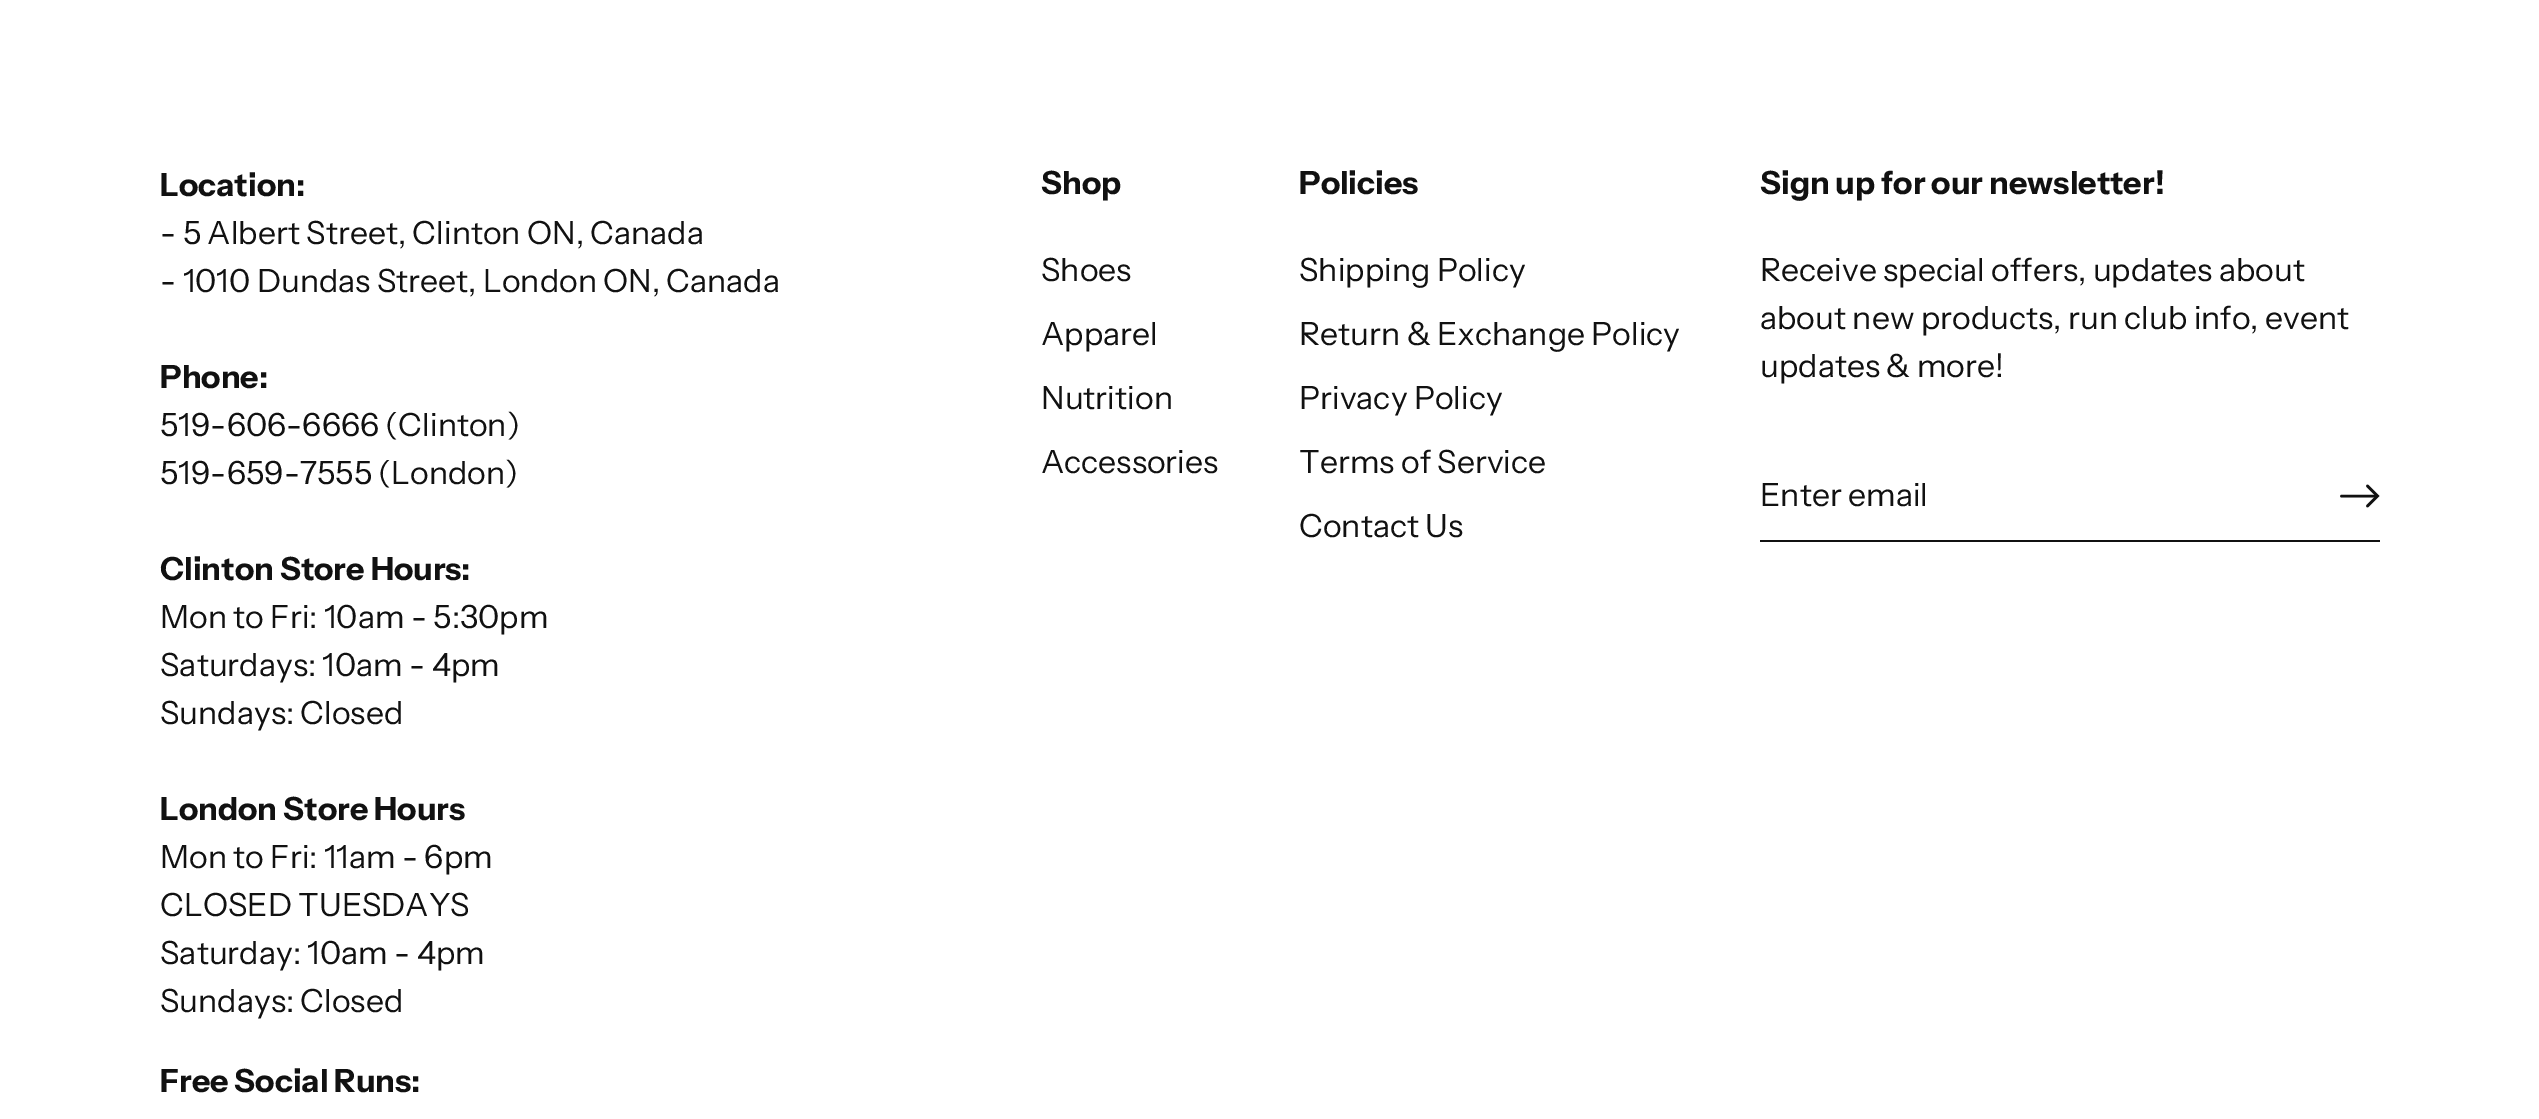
%!PS
<< /PageSize [2539 1119] >> setpagedevice
/m/moveto load def
/l/rlineto load def
/s/stroke load def
/w/setlinewidth load def
/C { dup -16 bitshift 255 div exch dup -8 bitshift 255 and 255 div exch 255 and 255 div setrgbcolor } def
/F { [ exch dup neg 0 0 3 -1 roll 0 0 ] selectfont } def
/T { moveto show } def
/R { rectfill } def
0 1119 translate 1 -1 scale
4 setmiterlimit
16#FFFFFF C
0 0 2539 1119 R
/InstrumentSans-Bold 32 F
16#111111 C
(Location:) 160 196 T
/InstrumentSans-Regular 32 F
(- 5 Albert Street, Clinton ON, Canada) 160 244 T
(- 1010 Dundas Street, London ON, Canada) 160 292 T
/InstrumentSans-Bold 32 F
(Phone:) 160 388 T
/InstrumentSans-Regular 32 F
(519-606-6666 \(Clinton\)) 160 436 T
(519-659-7555 \(London\)) 160 484 T
/InstrumentSans-Bold 32 F
(Clinton Store Hours:) 160 580 T
/InstrumentSans-Regular 32 F
(Mon to Fri: 10am - 5:30pm) 160 628 T
(Saturdays: 10am - 4pm) 160 676 T
(Sundays: Closed) 160 724 T
/InstrumentSans-Bold 32 F
(London Store Hours) 160 820 T
/InstrumentSans-Regular 32 F
(Mon to Fri: 11am - 6pm) 160 868 T
(CLOSED TUESDAYS) 160 916 T
(Saturday: 10am - 4pm) 160 964 T
(Sundays: Closed) 160 1012 T
/InstrumentSans-Bold 32 F
(Free Social Runs:) 160 1092 T
(Shop) 1041 194 T
/InstrumentSans-Regular 32 F
(Shoes) 1041 281 T
(Apparel) 1041 345 T
(Nutrition) 1041 409 T
(Accessories) 1041 473 T
/InstrumentSans-Bold 32 F
(Policies) 1299 194 T
/InstrumentSans-Regular 32 F
(Shipping Policy) 1299 281 T
(Return & Exchange Policy) 1299 345 T
(Privacy Policy) 1299 409 T
(Terms of Service) 1299 473 T
(Contact Us) 1299 537 T
/InstrumentSans-Bold 32 F
(Sign up for our newsletter!) 1760 194 T
/InstrumentSans-Regular 32 F
(Receive special offers, updates about) 1760 281 T
(about new products, run club info, event) 1760 329 T
(updates & more!) 1760 377 T
1760 540 620 2 R
(Enter email) 1760 506 T
2.6 w
1 setlinecap
2367.5 506 m 10 -10 l -10 -10 l s
1 setlinejoin
2376.5 496 m -35 0 l s
showpage
